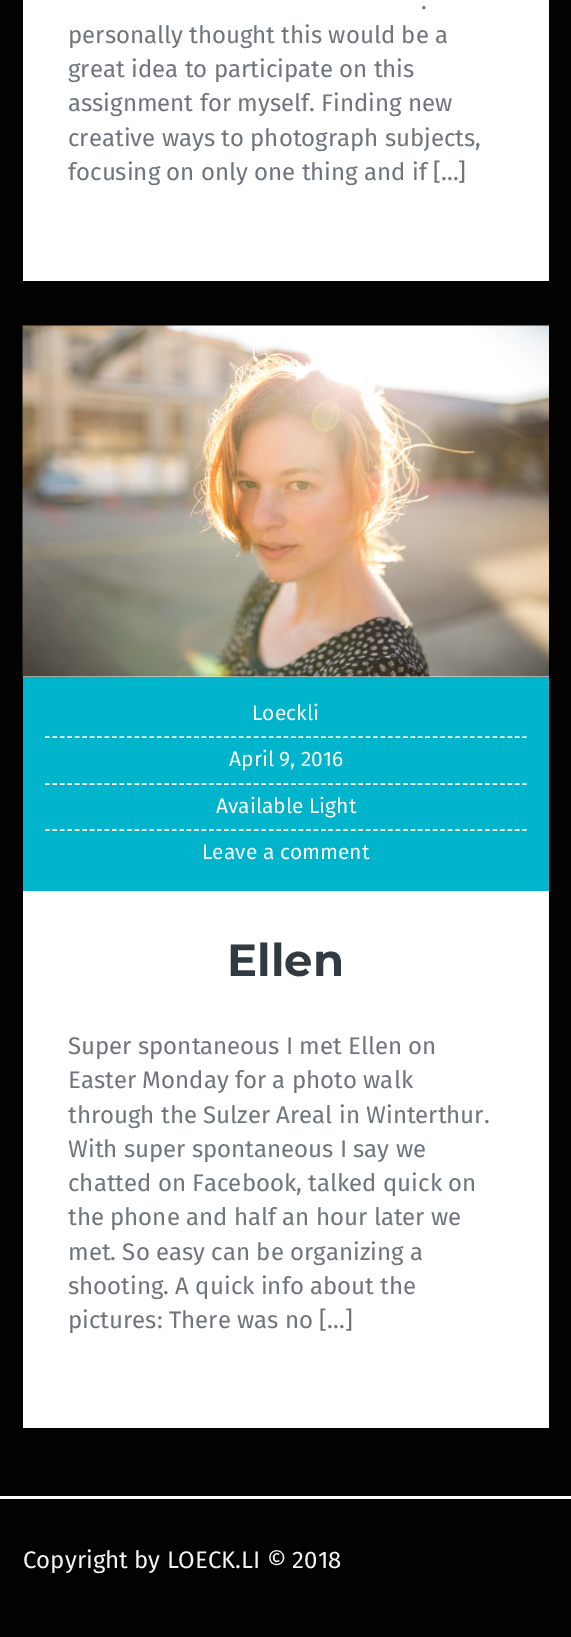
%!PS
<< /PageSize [571 1637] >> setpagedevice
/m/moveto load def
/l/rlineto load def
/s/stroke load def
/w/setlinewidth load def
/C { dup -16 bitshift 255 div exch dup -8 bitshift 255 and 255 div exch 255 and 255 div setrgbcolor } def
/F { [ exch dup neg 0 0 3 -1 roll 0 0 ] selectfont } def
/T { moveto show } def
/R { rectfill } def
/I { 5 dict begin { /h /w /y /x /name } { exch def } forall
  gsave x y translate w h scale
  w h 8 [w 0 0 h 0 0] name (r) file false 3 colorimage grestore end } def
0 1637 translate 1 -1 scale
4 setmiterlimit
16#020202 C
0 0 571 1637 R
16#FFFFFF C
23 0 526 281 R
/FiraSans-Regular 24 F
16#6E757C C
(.) 421 9 T
(personally thought this would be a) 68 43 T
(great idea to participate on this) 68 77 T
(assignment for myself. Finding new) 68 111 T
(creative ways to photograph subjects,) 68 146 T
(focusing on only one thing and if […]) 68 180 T
16#FFFFFF C
23 676 526 752 R
(1.rgb) 22 325 527 352 I
16#00B4CC C
23 677 526 214 R
16#FFFFFF C
1.5 w
[4.5 2.96] 0 setdash
45 737 m 481.5 0 l s
/FiraSans-Regular 21 F
(Loeckli) 252 720 T
45 784 m 481.5 0 l s
(April 9, 2016) 229 766 T
45 830 m 481.5 0 l s
(Available Light) 216 813 T
(Leave a comment) 202 859 T
/Montserrat-Bold 45 F
16#323A41 C
(Ellen) 227 976 T
/FiraSans-Regular 24 F
16#6E757C C
(Super spontaneous I met Ellen on) 68 1054 T
(Easter Monday for a photo walk) 68 1088 T
(through the Sulzer Areal in Winterthur.) 68 1123 T
(With super spontaneous I say we) 68 1157 T
(chatted on Facebook, talked quick on) 68 1191 T
(the phone and half an hour later we) 68 1225 T
(met. So easy can be organizing a) 68 1260 T
(shooting. A quick info about the) 68 1294 T
(pictures: There was no […]) 68 1328 T
16#FFFFFF C
0 1496 571 3 R
16#F5F5F5 C
(Copyright by LOECK.LI © 2018) 23 1568 T
showpage
